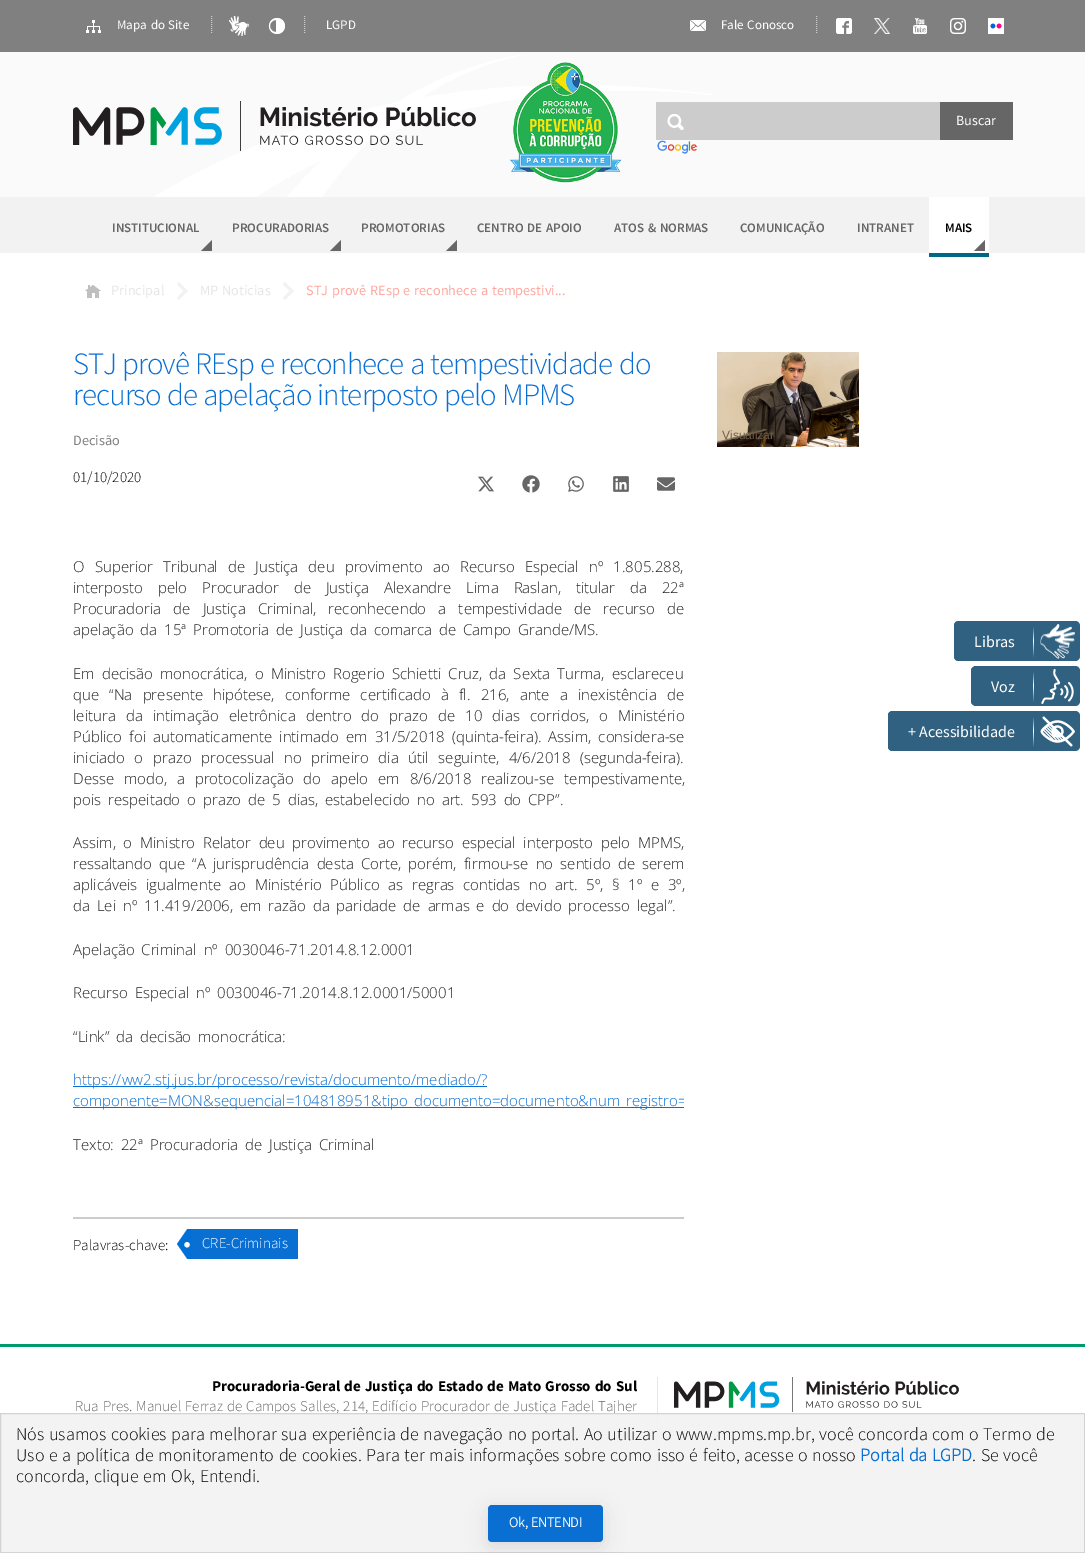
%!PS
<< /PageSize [1085 1553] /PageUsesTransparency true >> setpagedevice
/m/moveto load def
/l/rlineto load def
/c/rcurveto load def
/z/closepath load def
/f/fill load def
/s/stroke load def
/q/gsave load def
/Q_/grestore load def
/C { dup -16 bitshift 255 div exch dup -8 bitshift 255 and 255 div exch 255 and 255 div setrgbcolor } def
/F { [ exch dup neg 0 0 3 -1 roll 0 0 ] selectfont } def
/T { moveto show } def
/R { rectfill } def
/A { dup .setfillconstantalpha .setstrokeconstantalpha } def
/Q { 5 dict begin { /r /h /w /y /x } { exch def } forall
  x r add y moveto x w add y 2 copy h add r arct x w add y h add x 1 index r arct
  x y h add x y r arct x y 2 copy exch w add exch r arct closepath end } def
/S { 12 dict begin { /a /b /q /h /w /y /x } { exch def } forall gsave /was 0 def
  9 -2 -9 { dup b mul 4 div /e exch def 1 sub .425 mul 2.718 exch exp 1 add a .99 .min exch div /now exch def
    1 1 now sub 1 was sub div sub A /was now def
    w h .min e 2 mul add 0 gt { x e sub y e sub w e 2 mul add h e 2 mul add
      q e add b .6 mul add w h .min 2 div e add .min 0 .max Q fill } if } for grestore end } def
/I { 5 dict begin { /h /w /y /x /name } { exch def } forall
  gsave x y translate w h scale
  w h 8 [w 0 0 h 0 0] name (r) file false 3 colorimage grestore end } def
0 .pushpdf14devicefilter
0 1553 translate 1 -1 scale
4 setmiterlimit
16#FFFFFF C
0 0 1085 1553 R
16#808080 C
0 0 1085 52 R
(1.rgb) 86 20 15 13 I
/SourceSansPro-Regular 13 F
16#FFFFFF C
117 29 m 1 0 32 (Mapa do Site) widthshow
16#CCCCCC C
[1 1] 0 setdash
211.5 16 m 0 17 l s
(2.rgb) 229 16 20 20 I
(3.rgb) 268 18 17 16 I
304.5 16 m 0 17 l s
16#FFFFFF C
(LGPD) 326 29 T
(4.rgb) 690 20 16 11 I
721 29 m 1 0 32 (Fale Conosco) widthshow
16#CCCCCC C
816.5 16 m 0 17 l s
(5.rgb) 836 18 17 16 I
(6.rgb) 874 18 16 16 I
(7.rgb) 913 18 14 16 I
(8.rgb) 950 18 16 16 I
(9.rgb) 988 18 16 16 I
16#FAFAFA C
0 52 1085 145 R
(10.rgb) 155 55 557 142 I
(11.rgb) 73 101 403 50 I
(12.rgb) 510 62 112 121 I
16#CCCCCC C
656 102 284 38 R
(13.rgb) 667 114 17 16 I
16#666666 C
940 102 73 38 R
/SourceSansPro-Regular 14 F
16#FFFFFF C
(Buscar) 956 125 T
(14.rgb) 657 140 40 14 I
16#F2F2F2 C
0 197 1085 56 R
(15.rgb) 201 240 11 11 I
/SourceSansPro-SemiBold 13 F
16#666666 C
(INSTITUCIONAL) 112 232 T
(15.rgb) 330 240 11 11 I
(PROCURADORIAS) 232 232 T
(15.rgb) 446 240 11 11 I
(PROMOTORIAS) 361 232 T
477 232 m 1 0 32 (CENTRO DE APOIO) widthshow
614 232 m 1 0 32 (ATOS & NORMAS) widthshow
(COMUNICAÇÃO) 740 232 T
(INTRANET) 857 232 T
16#FFFFFF C
929 197 60 56 R
(16.rgb) 974 240 11 11 I
16#006884 C
929 253 60 4 R
16#000000 C
(MAIS) 945 232 T
(17.rgb) 177 282 11 18 I
(18.rgb) 85 285 16 13 I
/SourceSansPro-Regular 14.25 F
16#E6E6E6 C
(Principal) 111 295 T
(17.rgb) 283 282 11 18 I
200 295 m 1 0 32 (MP Notícias) widthshow
16#FFA89F C
306 295 m 1 0 32 (STJ provê REsp e reconhece a tempestivi...) widthshow
/SourceSansPro-Light 31 F
16#0A6FD2 C
73 374 m 1 0 32 -1 0 (STJ provê REsp e reconhece a tempestividade do) awidthshow
73 405 m 1 0 32 -1 0 (recurso de apelação interposto pelo MPMS) awidthshow
/SourceSansPro-Regular 14.25 F
16#808080 C
(Decisão) 73 445 T
/SourceSansPro-Light 15 F
16#000000 C
(01/10/2020) 73 482 T
(19.rgb) 478 476 16 16 I
(20.rgb) 522 475 18 18 I
(21.rgb) 568 476 16 16 I
(22.rgb) 613 476 16 16 I
(23.rgb) 657 477 18 14 I
/OpenSans-Light 15 F
16#222222 C
73 572 m 6.25 0 32 (O Superior Tribunal de Justiça deu provimento ao Recurso Especial nº 1.805.288,) widthshow
73 593 m 11 0 32 (interposto pelo Procurador de Justiça Alexandre Lima Raslan, titular da 22ª) widthshow
73 614 m 8.25 0 32 (Procuradoria de Justiça Criminal, reconhecendo a tempestividade de recurso de) widthshow
73 635 m 3 0 32 (apelação da 15ª Promotoria de Justiça da comarca de Campo Grande/MS.) widthshow
73 679 m 3.25 0 32 (Em decisão monocrática, o Ministro Rogerio Schietti Cruz, da Sexta Turma, esclareceu) widthshow
73 700 m 6.25 0 32 (que “Na presente hipótese, conforme certificado à fl. 216, ante a inexistência de) widthshow
73 721 m 6.25 0 32 (leitura da intimação eletrônica dentro do prazo de 10 dias corridos, o Ministério) widthshow
73 742 m 3.25 0 32 (Público foi automaticamente intimado em 31/5/2018 \(quinta-feira\). Assim, considera-se) widthshow
73 763 m 5.75 0 32 (iniciado o prazo processual no primeiro dia útil seguinte, 4/6/2018 \(segunda-feira\).) widthshow
73 784 m 6 0 32 (Desse modo, a protocolização do apelo em 8/6/2018 realizou-se tempestivamente,) widthshow
73 805 m 3 0 32 (pois respeitado o prazo de 5 dias, estabelecido no art. 593 do CPP”.) widthshow
73 848 m 3.75 0 32 (Assim, o Ministro Relator deu provimento ao recurso especial interposto pelo MPMS,) widthshow
73 869 m 3.25 0 32 (ressaltando que “A jurisprudência desta Corte, porém, firmou-se no sentido de serem) widthshow
73 890 m 4.75 0 32 (aplicáveis igualmente ao Ministério Público as regras contidas no art. 5º, § 1º e 3º,) widthshow
73 911 m 3 0 32 (da Lei nº 11.419/2006, em razão da paridade de armas e do devido processo legal”.) widthshow
73 955 m 3 0 32 (Apelação Criminal nº 0030046-71.2014.8.12.0001) widthshow
73 998 m 3 0 32 (Recurso Especial nº 0030046-71.2014.8.12.0001/50001) widthshow
73 1042 m 3 0 32 (“Link” da decisão monocrática:) widthshow
16#0A6FD2 C
73 1086 414 1 R
(https://ww2.stj.jus.br/processo/revista/documento/mediado/?) 73 1085 T
73 1107 611 1 R
q
73 534 611 643 rectclip
(componente=MON&sequencial=104818951&tipo_documento=documento&num_registro=) 73 1106 T
Q_
16#222222 C
73 1150 m 3 0 32 (Texto: 22ª Procuradoria de Justiça Criminal) widthshow
16#CCCCCC C
73 1217 611 2 R
/SourceSansPro-Light 15 F
16#000000 C
(Palavras-chave:) 73 1250 T
(24.rgb) 177 1229 15 30 I
16#0A6FD2 C
192 1229 106 30 R
16#FFFFFF C
(CRE-Criminais) 202 1248 T
(25.rgb) 717 352 142 95 I
/LiberationSans-Regular 12 F
16#6D5E4B C
(Visualizar) 722 439 T
16#316181 C
1075 621 m -116 0 l -3 0 -5 2 -5 5 c 0 30 l 0 3 2 5 5 5 c 116 0 l 3 0 5 -2 5 -5 c 0 -30 l 0 -3 -2 -5 -5 -5 c z f
(26.rgb) 1040 624 35 35 I
1039 621 m 2 2 2 38 0 40 c -80 0 l -3 0 -5 -2 -5 -5 c 0 -30 l 0 -3 2 -5 5 -5 c z f
/SourceSansPro-Regular 16 F
16#FFFFFF C
(Libras) 974 647 T
q 1033 621 m 1 0 l 0 40 l -1 0 l z clip newpath
<< /ShadingType 2 /ColorSpace /DeviceRGB /Coords [1033 664 1033 619] /Extend [true true] /Function << /FunctionType 3 /Domain [0 1] /Functions [<< /FunctionType 2 /Domain [0 1] /C0 [.192 .38 .506] /C1 [.192 .38 .506] /N 1 >> << /FunctionType 2 /Domain [0 1] /C0 [.192 .38 .506] /C1 [1 1 1] /N 1 >> << /FunctionType 2 /Domain [0 1] /C0 [1 1 1] /C1 [.192 .38 .506] /N 1 >> << /FunctionType 2 /Domain [0 1] /C0 [.192 .38 .506] /C1 [.192 .38 .506] /N 1 >>] /Bounds [.14 .52 .83] /Encode [0 1 0 1 0 1 0 1] >> >> shfill Q_
16#316181 C
1075 666 m -99 0 l -2 0 -5 2 -5 5 c 0 30 l 0 3 3 5 5 5 c 99 0 l 3 0 5 -2 5 -5 c 0 -30 l 0 -3 -2 -5 -5 -5 c z f
1039 666 m 2 2 2 38 0 40 c -63 0 l -2 0 -5 -2 -5 -5 c 0 -30 l 0 -3 3 -5 5 -5 c z f
16#FFFFFF C
(Voz) 991 692 T
q 1033 666 m 1 0 l 0 40 l -1 0 l z clip newpath
<< /ShadingType 2 /ColorSpace /DeviceRGB /Coords [1034 709 1034 664] /Extend [true true] /Function << /FunctionType 3 /Domain [0 1] /Functions [<< /FunctionType 2 /Domain [0 1] /C0 [.192 .38 .506] /C1 [.192 .38 .506] /N 1 >> << /FunctionType 2 /Domain [0 1] /C0 [.192 .38 .506] /C1 [1 1 1] /N 1 >> << /FunctionType 2 /Domain [0 1] /C0 [1 1 1] /C1 [.192 .38 .506] /N 1 >> << /FunctionType 2 /Domain [0 1] /C0 [.192 .38 .506] /C1 [.192 .38 .506] /N 1 >>] /Bounds [.14 .52 .83] /Encode [0 1 0 1 0 1 0 1] >> >> shfill Q_
(27.rgb) 1041 669 33 35 I
16#316181 C
1075 711 m -182 0 l -3 0 -5 2 -5 5 c 0 30 l 0 3 2 5 5 5 c 182 0 l 3 0 5 -2 5 -5 c 0 -30 l 0 -3 -2 -5 -5 -5 c z f
(28.rgb) 1040 716 35 31 I
888 747 m 0 -32 l 0 -2 2 -4 5 -4 c 146 0 l 2 2 2 38 0 40 c -146 0 l -3 0 -5 -2 -5 -4 c z f
16#FFFFFF C
(+ Acessibilidade) 908 737 T
q 1033 711 m 1 0 l 0 40 l -1 0 l z clip newpath
<< /ShadingType 2 /ColorSpace /DeviceRGB /Coords [1033 754 1033 709] /Extend [true true] /Function << /FunctionType 3 /Domain [0 1] /Functions [<< /FunctionType 2 /Domain [0 1] /C0 [.192 .38 .506] /C1 [.192 .38 .506] /N 1 >> << /FunctionType 2 /Domain [0 1] /C0 [.192 .38 .506] /C1 [1 1 1] /N 1 >> << /FunctionType 2 /Domain [0 1] /C0 [1 1 1] /C1 [.192 .38 .506] /N 1 >> << /FunctionType 2 /Domain [0 1] /C0 [.192 .38 .506] /C1 [.192 .38 .506] /N 1 >>] /Bounds [.14 .52 .83] /Encode [0 1 0 1 0 1 0 1] >> >> shfill Q_
16#009B6C C
0 1344 1085 3 R
16#E6E6E6 C
657 1377 1 100 R
/SourceSansPro-Bold 15 F
16#000000 C
212 1391 m 1 0 32 (Procuradoria-Geral de Justiça do Estado de Mato Grosso do Sul) widthshow
/SourceSansPro-Light 15 F
16#666666 C
75 1411 m 1 0 32 (Rua Pres. Manuel Ferraz de Campos Salles, 214, Edifício Procurador de Justiça Fadel Tajher) widthshow
(29.rgb) 674 1377 285 35 I
0.93 A
16#F2F2F2 C
.5 1413.5 m 1084 0 l 0 139 l -1084 0 l z f
1 A
16#D3D3D3 C
[] 0 setdash
.5 1413.5 m 1084 0 l 0 139 l -1084 0 l z s
/SourceSansPro-Light 18 F
16#000000 C
16 1440 m 1 0 32 (Nós usamos cookies para melhorar sua experiência de navegação no portal. Ao utilizar o www.mpms.mp.br, você concorda com o Termo de) widthshow
16 1461 m 1 0 32 (Uso e a política de monitoramento de cookies. Para ter mais informações sobre como isso é feito, acesse o nosso) widthshow
/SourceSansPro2-Bold 18 F
16#0A6FD2 C
860 1461 m 1 0 32 (Portal da LGPD) widthshow
/SourceSansPro-Light 18 F
16#000000 C
972 1461 m 1 0 32 (. Se você) widthshow
16 1482 m 1 0 32 (concorda, clique em Ok, Entendi.) widthshow
488 1510 115 37 4 10 .1 S
16#0A6FD2 C
488 1505 115 37 4 Q f
/SourceSansPro2-Bold 14 F
16#FFFFFF C
509 1527 m 1 0 32 (Ok, ENTENDI) widthshow
.poppdf14devicefilter showpage
